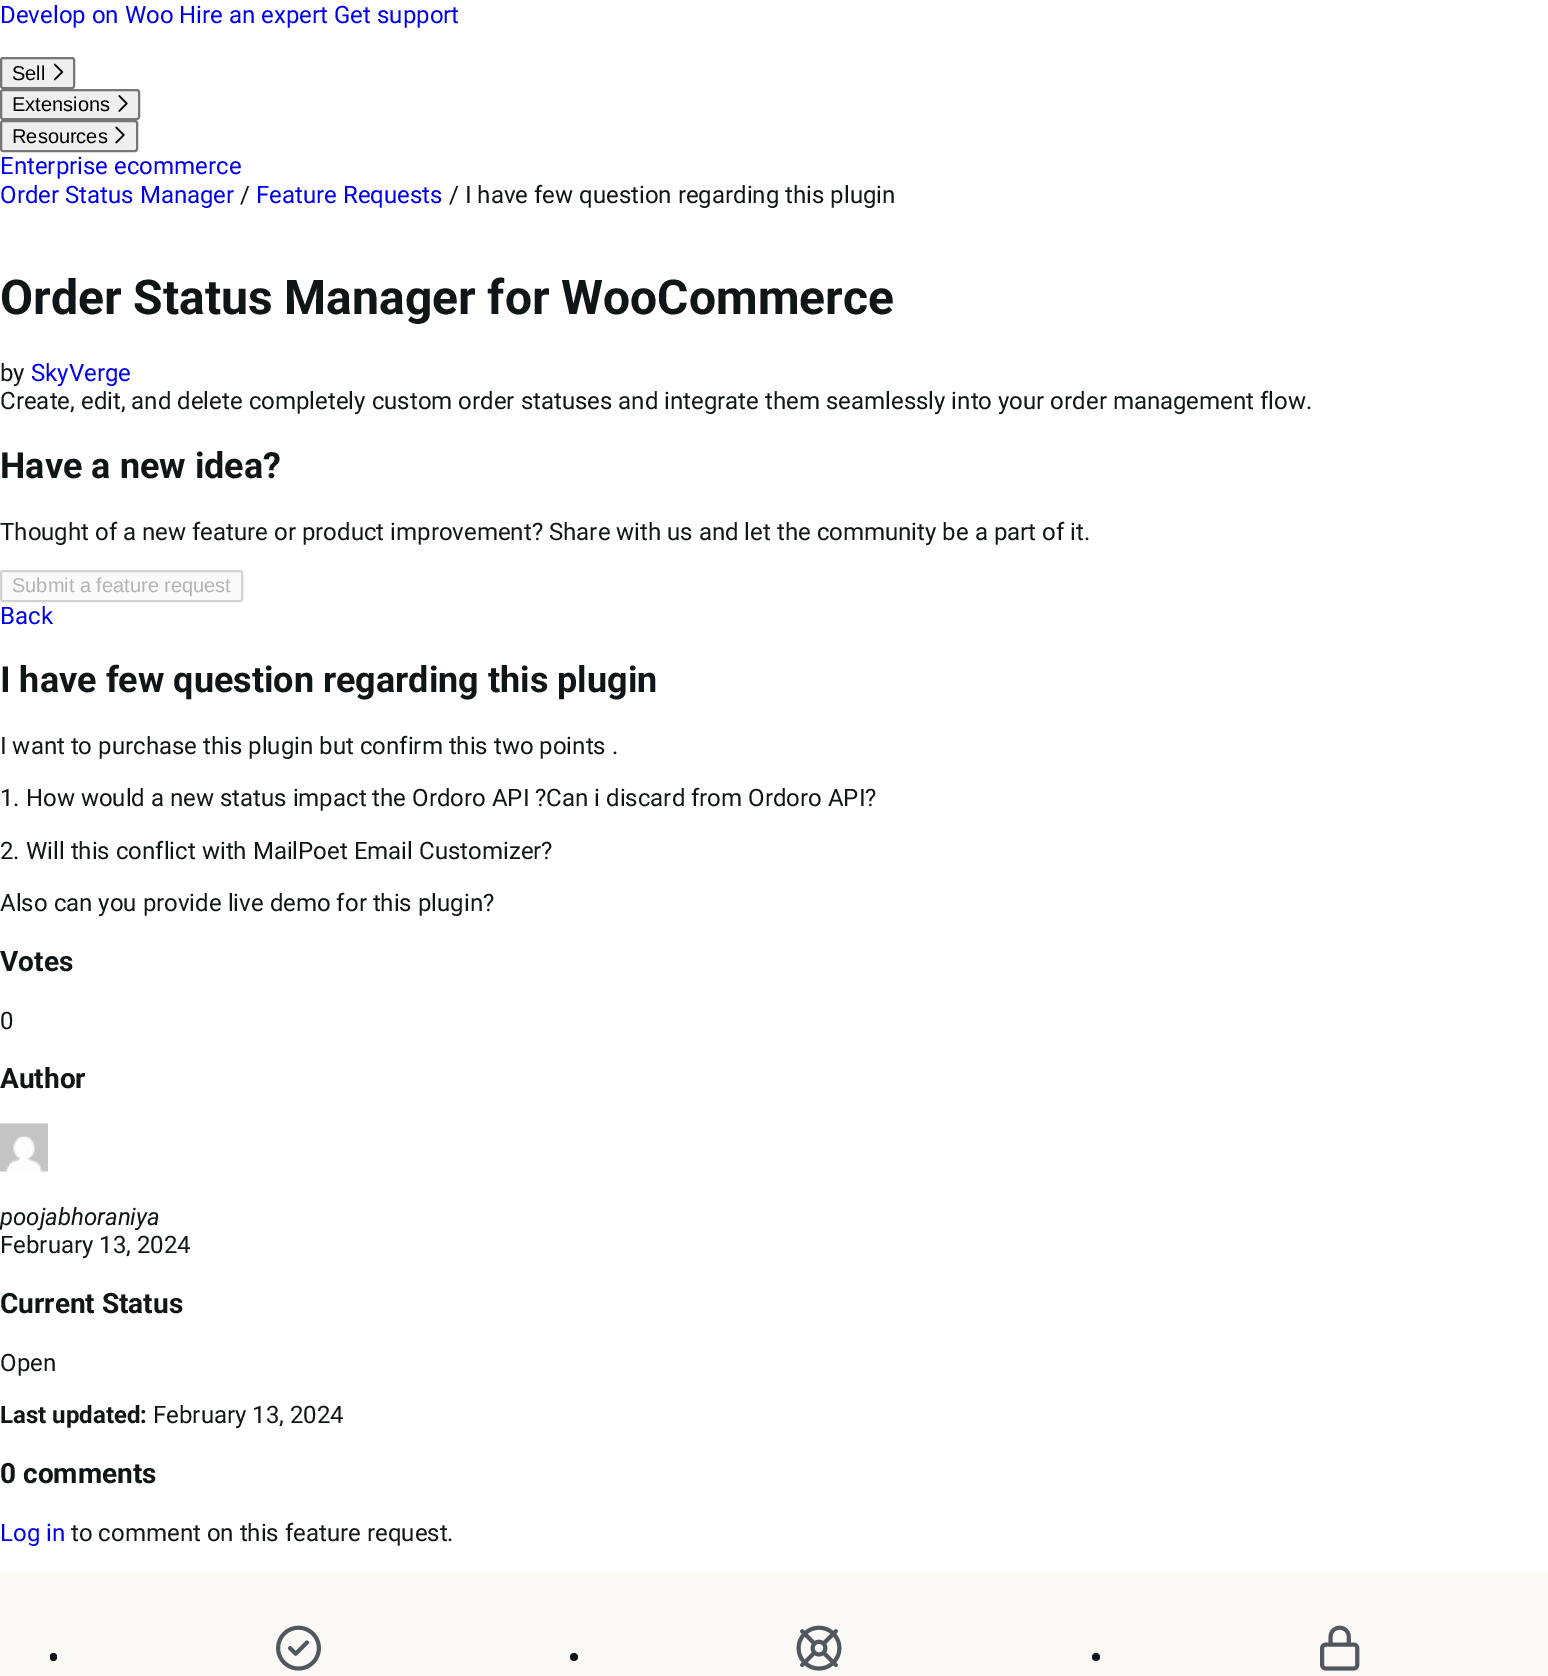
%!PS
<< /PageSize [1548 1676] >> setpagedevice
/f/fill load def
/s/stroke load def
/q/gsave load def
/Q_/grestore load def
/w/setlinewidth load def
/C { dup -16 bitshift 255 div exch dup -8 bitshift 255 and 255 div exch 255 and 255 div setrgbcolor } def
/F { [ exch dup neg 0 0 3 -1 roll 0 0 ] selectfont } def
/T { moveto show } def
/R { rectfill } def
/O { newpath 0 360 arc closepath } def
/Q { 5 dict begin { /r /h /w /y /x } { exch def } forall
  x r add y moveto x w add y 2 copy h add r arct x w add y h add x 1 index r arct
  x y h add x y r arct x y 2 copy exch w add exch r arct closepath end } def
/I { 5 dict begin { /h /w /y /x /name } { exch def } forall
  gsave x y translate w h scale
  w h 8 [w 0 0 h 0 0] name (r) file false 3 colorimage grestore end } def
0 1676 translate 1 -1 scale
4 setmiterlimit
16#FFFFFF C
0 0 1548 1676 R
/Roboto-Regular 24 F
16#0000EE C
(Develop on Woo Hire an expert Get support) 0 23 T
16#EFEFEF C
1 58 73 30 2 Q q f Q_
16#767676 C
2 w
s
/LiberationSans-Regular 20 F
16#000000 C
(Sell) 12 80 T
(1.rgb) 53 63 11 18 I
16#EFEFEF C
1 90 138 29 2 Q q f Q_
16#767676 C
s
16#000000 C
(Extensions) 12 111 T
(2.rgb) 118 95 10 17 I
16#EFEFEF C
1 121 136 30 2 Q q f Q_
16#767676 C
s
16#000000 C
(Resources) 12 143 T
(3.rgb) 115 126 10 18 I
/Roboto-Regular 24 F
16#0000EE C
(Enterprise ecommerce) 0 174 T
(Order Status Manager) 0 203 T
16#101517 C
(/) 240 203 T
16#0000EE C
(Feature Requests) 256 203 T
16#101517 C
(/ I have few question regarding this plugin) 449 203 T
/Roboto-Bold 48 F
(Order Status Manager for WooCommerce) 0 314 T
/Roboto-Regular 24 F
(by) 0 381 T
16#0000EE C
(SkyVerge) 31 381 T
16#101517 C
(Create, edit, and delete completely custom order statuses and integrate them seamlessly into your order management flow.) 0 409 T
/Roboto-Bold 36 F
(Have a new idea?) 0 478 T
/Roboto-Regular 24 F
(Thought of a new feature or product improvement? Share with us and let the community be a part of it.) 0 540 T
16#FAFAFA C
1 571 241 30 2 Q q f Q_
16#D2D2D2 C
s
/LiberationSans-Regular 20 F
16#B4B4B4 C
(Submit a feature request) 12 592 T
/Roboto-Regular 24 F
16#0000EE C
(Back) 0 624 T
/Roboto-Bold 36 F
16#101517 C
(I have few question regarding this plugin) 0 692 T
/Roboto-Regular 24 F
(I want to purchase this plugin but confirm this two points .) 0 754 T
(1. How would a new status impact the Ordoro API ?Can i discard from Ordoro API?) 0 806 T
(2. Will this conflict with MailPoet Email Customizer?) 0 859 T
(Also can you provide live demo for this plugin?) 0 911 T
/Roboto-Bold 28 F
(Votes) 0 971 T
/Roboto-Regular 24 F
(0) 0 1029 T
/Roboto-Bold 28 F
(Author) 0 1088 T
(4.rgb) 0 1123 48 49 I
/Roboto-Italic 24 F
(poojabhoraniya) 0 1225 T
/Roboto-Regular 24 F
(February 13, 2024) 0 1253 T
/Roboto-Bold 28 F
(Current Status) 0 1313 T
/Roboto-Regular 24 F
(Open) 0 1371 T
/Roboto-Bold 24 F
(Last updated:) 0 1423 T
/Roboto-Regular 24 F
(February 13, 2024) 153 1423 T
/Roboto-Bold 28 F
(0 comments) 0 1483 T
/Roboto-Regular 24 F
16#0000EE C
(Log in) 0 1541 T
16#101517 C
(to comment on this feature request.) 71 1541 T
16#FBF9F6 C
0 1571 1548 105 R
16#101517 C
50 1653 7 8 3.5 Q f
(5.rgb) 276 1625 45 46 I
574 1657 4 O f
(6.rgb) 796 1625 46 46 I
1096 1657 4 O f
(7.rgb) 1320 1625 40 46 I
showpage
